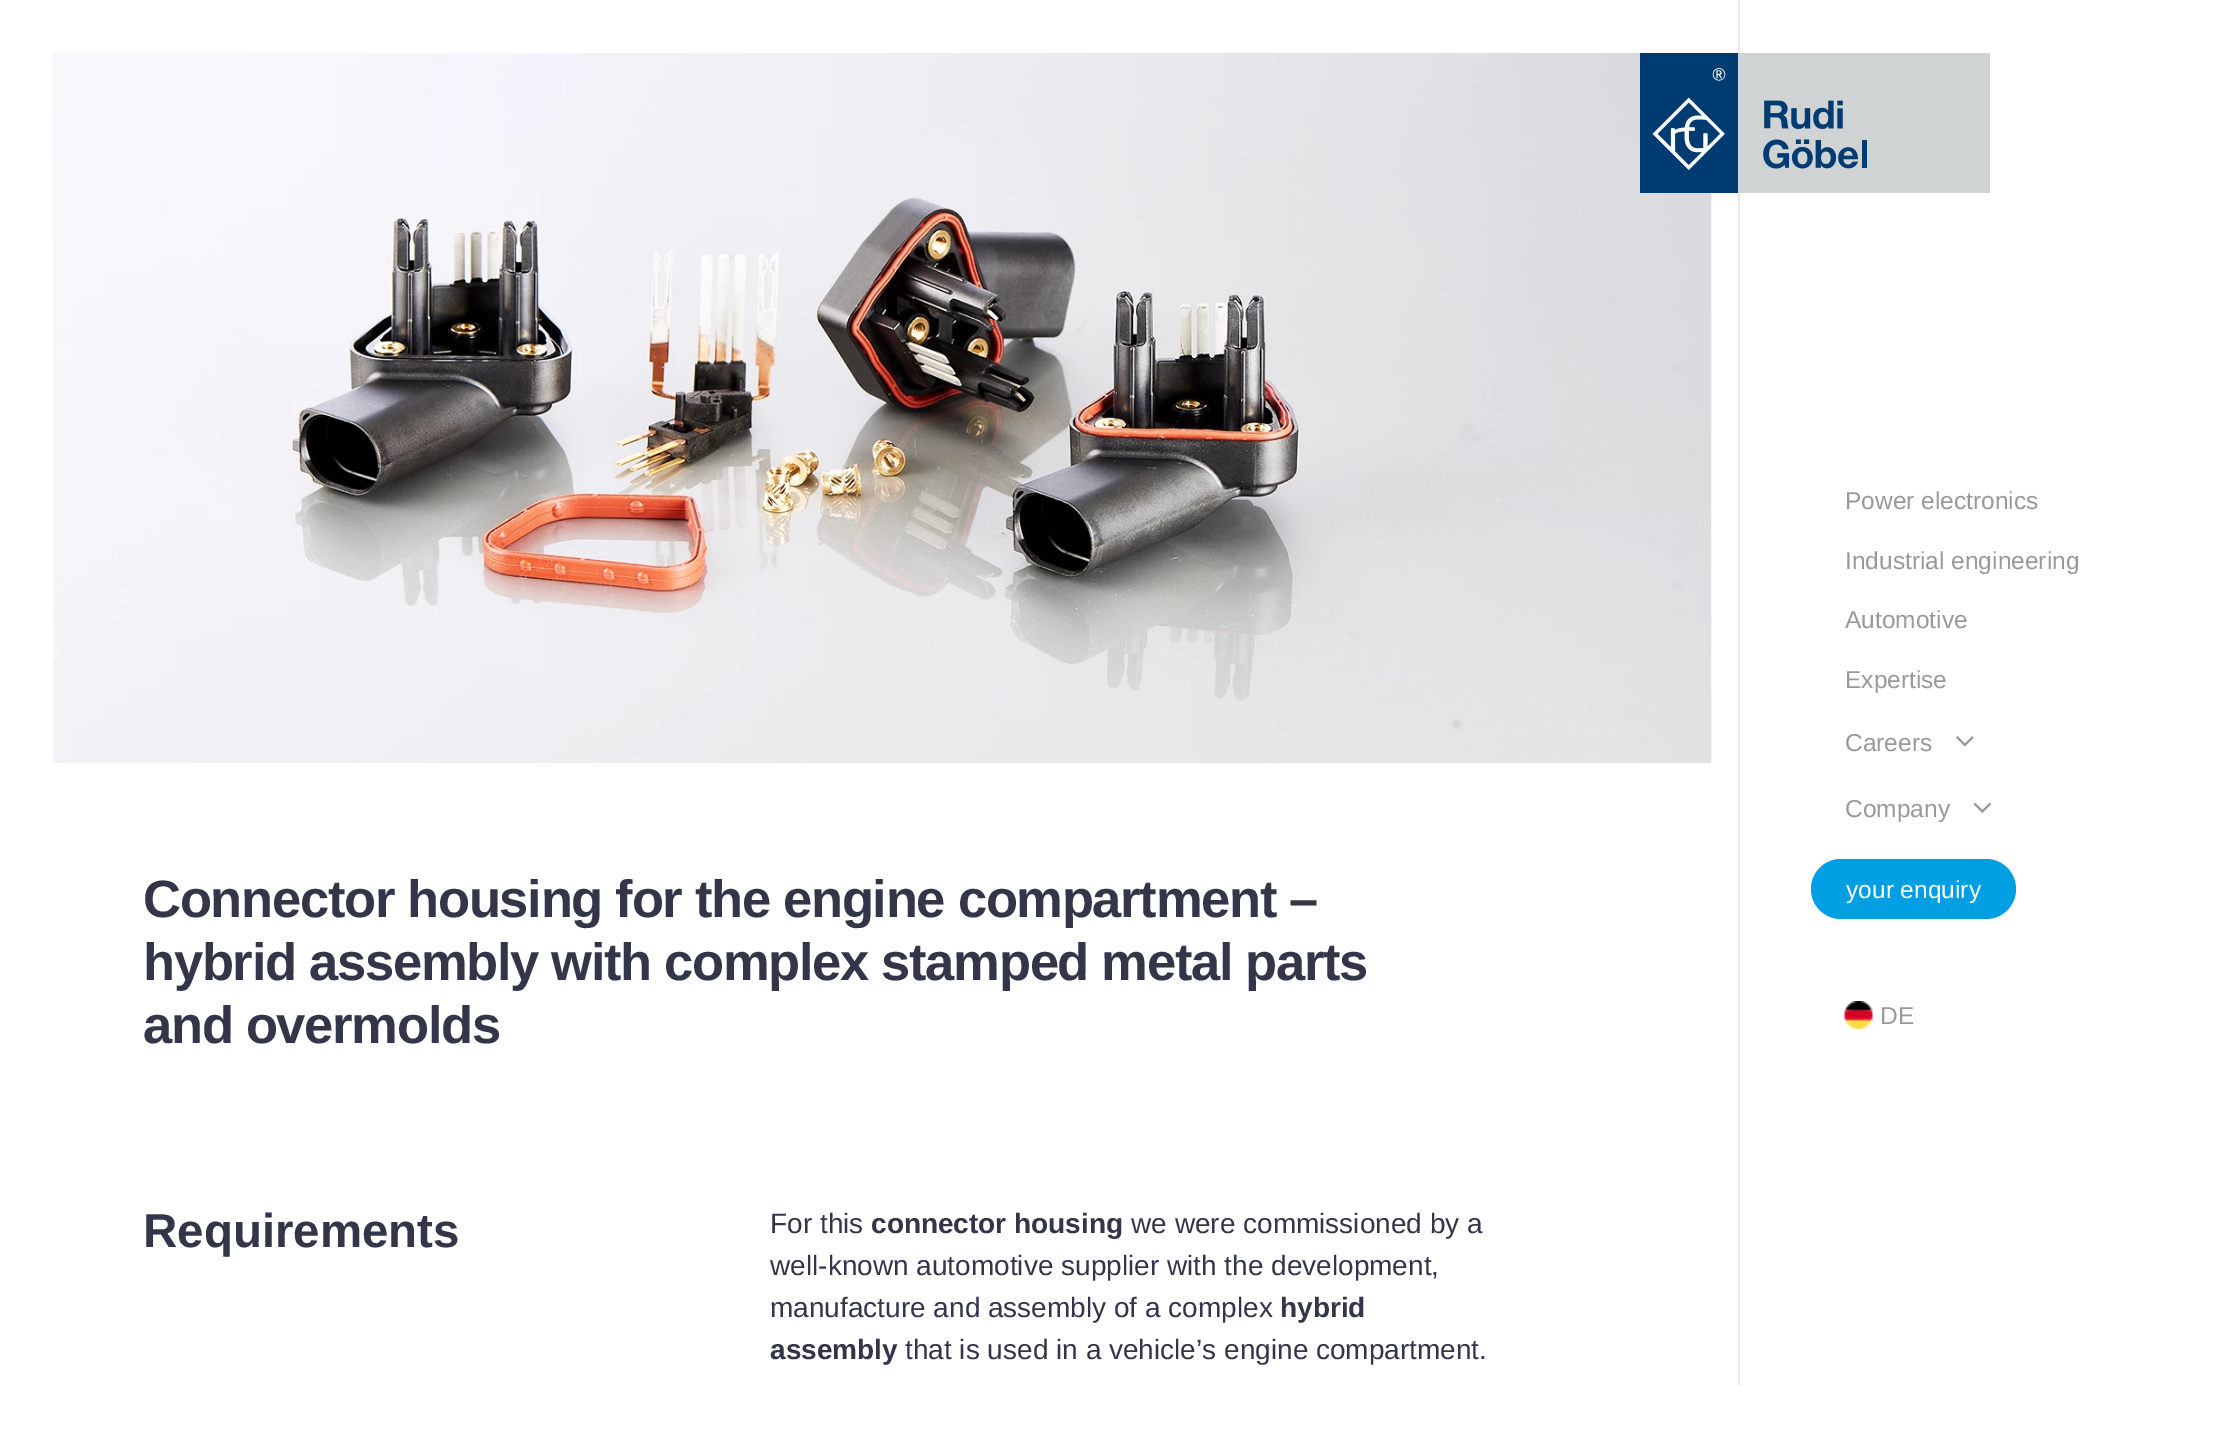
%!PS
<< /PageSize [2219 1437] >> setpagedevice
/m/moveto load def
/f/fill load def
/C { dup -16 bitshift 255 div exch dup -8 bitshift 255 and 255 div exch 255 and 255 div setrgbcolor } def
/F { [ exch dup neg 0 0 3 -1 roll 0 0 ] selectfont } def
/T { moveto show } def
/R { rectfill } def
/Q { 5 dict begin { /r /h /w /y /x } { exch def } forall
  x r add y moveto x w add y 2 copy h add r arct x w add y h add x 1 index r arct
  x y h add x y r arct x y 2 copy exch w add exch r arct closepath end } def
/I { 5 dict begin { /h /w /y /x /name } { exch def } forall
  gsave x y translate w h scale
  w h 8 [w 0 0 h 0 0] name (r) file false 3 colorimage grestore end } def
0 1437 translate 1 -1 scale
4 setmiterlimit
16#FFFFFF C
0 0 2219 1437 R
16#EBEBED C
1738 0 2 1386 R
(5.rgb) 53 53 1659 710 I
(1.rgb) 1640 53 350 140 I
/LiberationSans-Regular 24.5 F
16#999999 C
(Power electronics) 1845 509 T
(Industrial engineering) 1845 569 T
(Automotive) 1845 628 T
(Expertise) 1845 688 T
(Careers) 1845 751 T
(2.rgb) 1956 736 18 11 I
(Company) 1845 817 T
(3.rgb) 1973 802 19 11 I
16#009FE3 C
1811 859 205 60 30 Q f
16#FFFFFF C
(your enquiry) 1846 898 T
(4.rgb) 1844 1001 29 28 I
16#999999 C
(DE) 1880 1024 T
/LiberationSans-Bold 52.5 F
16#333548 C
143 917 m -1.3 0 (Connector housing for the engine compartment –) ashow
143 980 m -1.3 0 (hybrid assembly with complex stamped metal parts) ashow
143 1043 m -1.3 0 (and overmolds) ashow
/LiberationSans-Bold 47.5 F
(Requirements) 143 1247 T
/LiberationSans-Regular 28 F
(For this) 770 1233 T
/LiberationSans-Bold 28 F
(connector housing) 871 1233 T
/LiberationSans-Regular 28 F
(we were commissioned by a) 1131 1233 T
(well-known automotive supplier with the development,) 770 1275 T
(manufacture and assembly of a complex) 770 1317 T
/LiberationSans-Bold 28 F
(hybrid) 1280 1317 T
(assembly) 770 1359 T
/LiberationSans-Regular 28 F
(that is used in a vehicle’s engine compartment.) 905 1359 T
showpage
